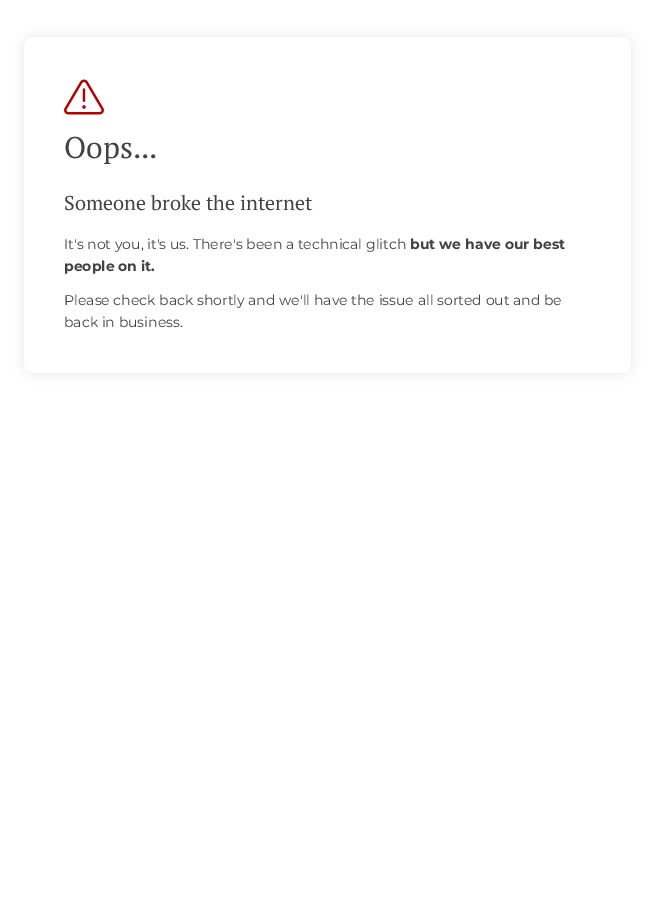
%!PS
<< /PageSize [655 916] /PageUsesTransparency true >> setpagedevice
/f/fill load def
/C { dup -16 bitshift 255 div exch dup -8 bitshift 255 and 255 div exch 255 and 255 div setrgbcolor } def
/F { [ exch dup neg 0 0 3 -1 roll 0 0 ] selectfont } def
/T { moveto show } def
/R { rectfill } def
/A { dup .setfillconstantalpha .setstrokeconstantalpha } def
/Q { 5 dict begin { /r /h /w /y /x } { exch def } forall
  x r add y moveto x w add y 2 copy h add r arct x w add y h add x 1 index r arct
  x y h add x y r arct x y 2 copy exch w add exch r arct closepath end } def
/S { 12 dict begin { /a /b /q /h /w /y /x } { exch def } forall gsave /was 0 def
  9 -2 -9 { dup b mul 4 div /e exch def 1 sub .425 mul 2.718 exch exp 1 add a .99 .min exch div /now exch def
    1 1 now sub 1 was sub div sub A /was now def
    w h .min e 2 mul add 0 gt { x e sub y e sub w e 2 mul add h e 2 mul add
      q e add b .6 mul add w h .min 2 div e add .min 0 .max Q fill } if } for grestore end } def
/I { 5 dict begin { /h /w /y /x /name } { exch def } forall
  gsave x y translate w h scale
  w h 8 [w 0 0 h 0 0] name (r) file false 3 colorimage grestore end } def
0 .pushpdf14devicefilter
0 916 translate 1 -1 scale
4 setmiterlimit
16#FFFFFF C
0 0 655 916 R
16#000000 C
24 37 607 336 10 6 .1 S
16#FFFFFF C
24 37 607 336 10 Q f
(1.rgb) 64 79 40 36 I
/PTSerif-Regular 30 F
16#424242 C
(Oops...) 64 158 T
/PTSerif-Regular 20 F
(Someone broke the internet) 64 210 T
/Montserrat-Regular 14 F
(It's not you, it's us. There's been a technical glitch) 64 249 T
/Montserrat-Bold 14 F
(but we have our best) 410 249 T
(people on it.) 64 271 T
/Montserrat-Regular 14 F
(Please check back shortly and we'll have the issue all sorted out and be) 64 305 T
(back in business.) 64 327 T
.poppdf14devicefilter showpage
